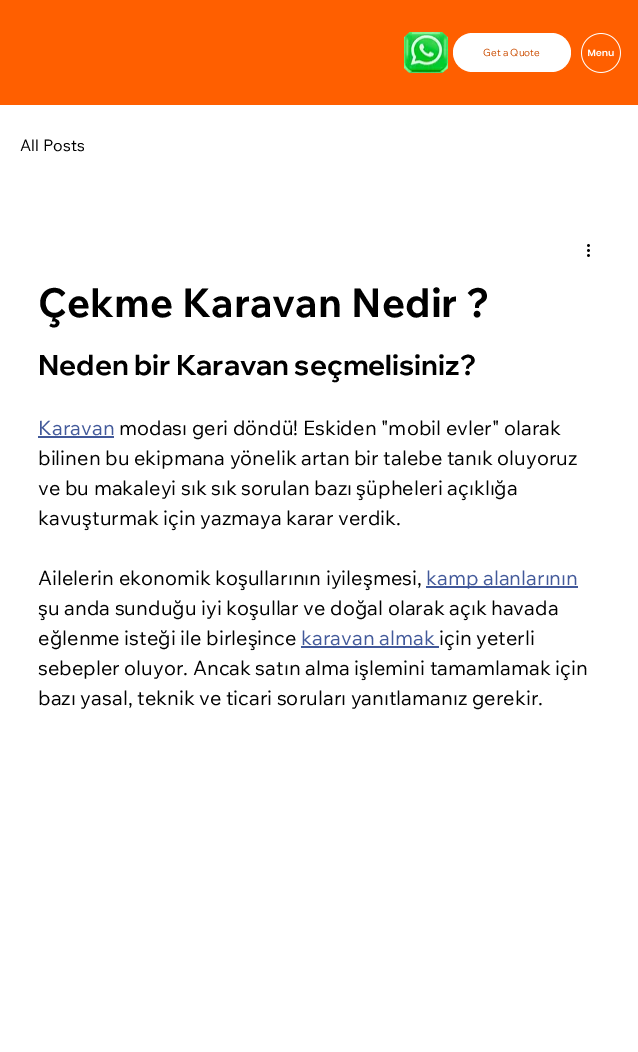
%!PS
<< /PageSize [638 1052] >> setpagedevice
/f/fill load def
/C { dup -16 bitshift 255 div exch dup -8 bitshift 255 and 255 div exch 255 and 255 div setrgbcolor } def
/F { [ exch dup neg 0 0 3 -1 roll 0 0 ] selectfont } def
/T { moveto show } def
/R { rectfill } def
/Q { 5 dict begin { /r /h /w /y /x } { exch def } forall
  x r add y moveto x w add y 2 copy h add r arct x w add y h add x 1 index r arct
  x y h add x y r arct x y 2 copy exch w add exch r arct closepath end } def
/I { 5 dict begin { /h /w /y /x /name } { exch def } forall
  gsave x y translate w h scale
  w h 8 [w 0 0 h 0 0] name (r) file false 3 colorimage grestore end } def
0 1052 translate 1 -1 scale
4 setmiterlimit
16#FFFFFF C
0 0 638 1052 R
16#FF5F00 C
0 0 638 105 R
(1.rgb) 404 32 44 41 I
16#FFFFFF C
453 33 118 39 19.5 Q f
/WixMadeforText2-Regular 10 F
16#CC4C00 C
(Get a Quote) 483 56 T
(2.rgb) 581 33 40 40 I
/WixMadeforText-Regular 16 F
16#000000 C
(All Posts) 20 151 T
(3.rgb) 587 244 3 13 I
/WixMadeforText-Bold 40 F
(Çekme Karavan Nedir ?) 38 317 T
/WixMadeforDisplay-Bold 28 F
(Neden bir Karavan seçmelisiniz?) 38 375 T
/WixMadeforText-Regular 20 F
16#42599A C
(Karavan) 38 435 T
38 436 76 2 R
16#000000 C
(modası geri döndü! Eskiden "mobil evler" olarak) 119 435 T
(bilinen bu ekipmana yönelik artan bir talebe tanık oluyoruz) 38 465 T
(ve bu makaleyi sık sık sorulan bazı şüpheleri açıklığa) 38 495 T
(kavuşturmak için yazmaya karar verdik.) 38 525 T
(Ailelerin ekonomik koşullarının iyileşmesi,) 38 585 T
16#42599A C
426 586 152 2 R
(kamp alanlarının) 426 585 T
16#000000 C
(şu anda sunduğu iyi koşullar ve doğal olarak açık havada) 38 615 T
(eğlenme isteği ile birleşince) 38 645 T
16#42599A C
(karavan almak) 301 645 T
301 646 138 2 R
16#000000 C
(için yeterli) 439 645 T
(sebepler oluyor. Ancak satın alma işlemini tamamlamak için) 38 675 T
(bazı yasal, teknik ve ticari soruları yanıtlamanız gerekir.) 38 705 T
showpage
